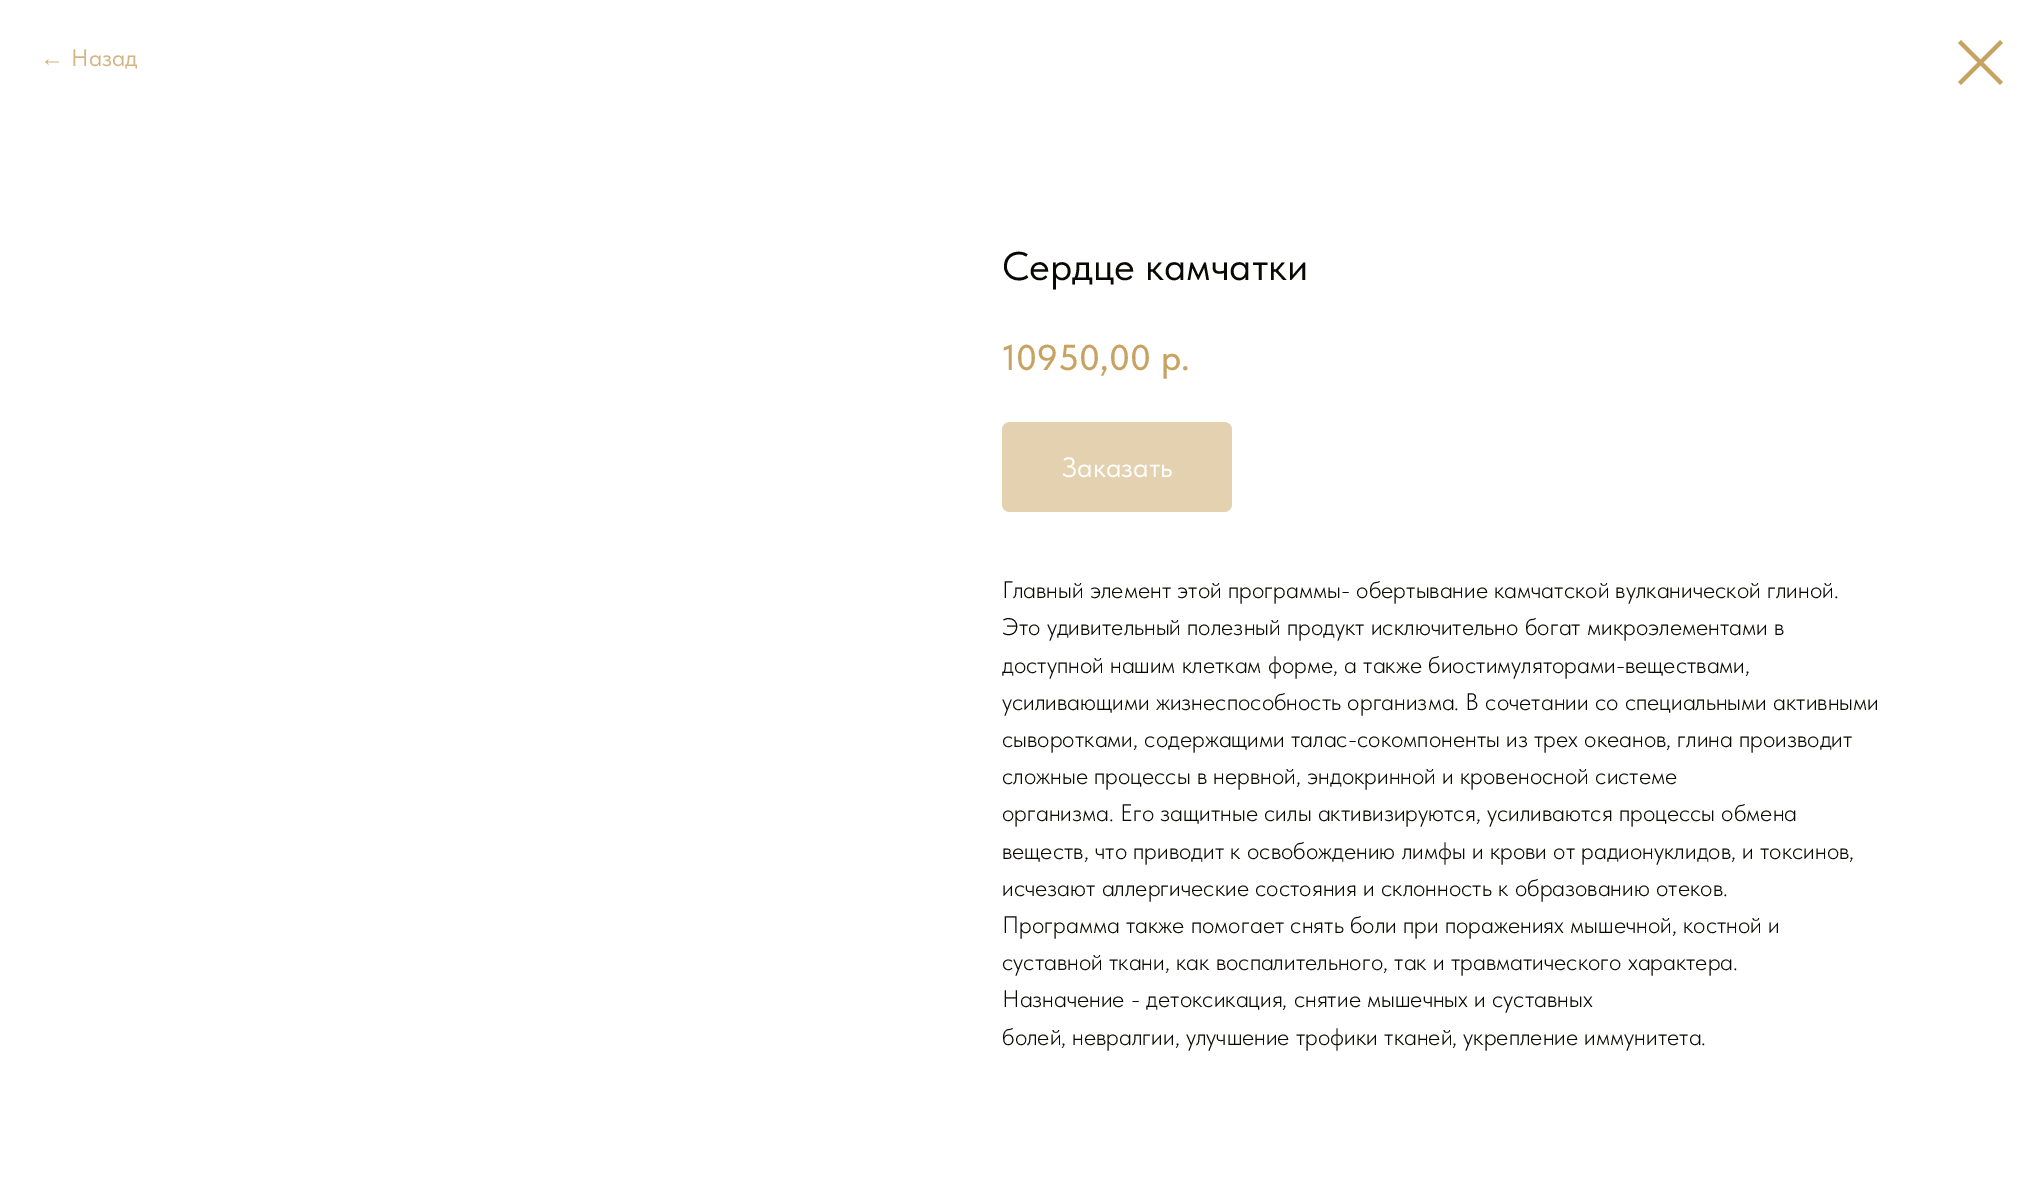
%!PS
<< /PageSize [2044 1177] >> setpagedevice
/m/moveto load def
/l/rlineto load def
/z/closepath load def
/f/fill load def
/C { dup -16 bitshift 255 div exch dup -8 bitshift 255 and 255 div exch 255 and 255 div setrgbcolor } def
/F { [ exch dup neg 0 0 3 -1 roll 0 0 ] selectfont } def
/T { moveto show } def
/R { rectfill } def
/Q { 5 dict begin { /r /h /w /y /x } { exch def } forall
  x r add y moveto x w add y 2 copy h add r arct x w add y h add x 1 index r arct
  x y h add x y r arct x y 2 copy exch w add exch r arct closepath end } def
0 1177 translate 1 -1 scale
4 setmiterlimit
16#FFFFFF C
0 0 2044 1177 R
/LiberationSans-Regular 24 F
16#D3B581 C
(←) 40 66 T
/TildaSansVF-Regular 24 F
(Назад) 71 66 T
16#C8A261 C
1958 43 m 3 -3 l 42 42 l -3 3 l z eofill
2000 40 m 3 3 l -42 42 l -3 -3 l z eofill
/TildaSansVF-Regular 40 F
16#0A0804 C
(Сердце камчатки) 1002 280 T
/TildaSansVF-Medium 36 F
16#C8A261 C
(10950,00) 1002 370 T
(р.) 1161 370 T
16#E4D1B0 C
1002 422 230 90 8 Q f
/TildaSansVF-Regular 28 F
16#FFFFFF C
(Заказать) 1062 477 T
/TildaSansVF-Light 24 F
16#0A0804 C
(Главный элемент этой программы- обертывание камчатской вулканической глиной.) 1002 598 T
(Это удивительный полезный продукт исключительно богат микроэлементами в) 1002 635 T
(доступной нашим клеткам форме, а также биостимуляторами-веществами,) 1002 673 T
(усиливающими жизнеспособность организма. В сочетании со специальными активными) 1002 710 T
(сыворотками, содержащими талас-сокомпоненты из трех океанов, глина производит) 1002 747 T
(сложные процессы в нервной, эндокринной и кровеносной системе) 1002 784 T
(организма. Его защитные силы активизируются, усиливаются процессы обмена) 1002 821 T
(веществ, что приводит к освобождению лимфы и крови от радионуклидов, и токсинов,) 1002 859 T
(исчезают аллергические состояния и склонность к образованию отеков.) 1002 896 T
(Программа также помогает снять боли при поражениях мышечной, костной и) 1002 933 T
(суставной ткани, как воспалительного, так и травматического характера.) 1002 970 T
(Назначение - детоксикация, снятие мышечных и суставных) 1002 1007 T
(болей, невралгии, улучшение трофики тканей, укрепление иммунитета.) 1002 1045 T
showpage
